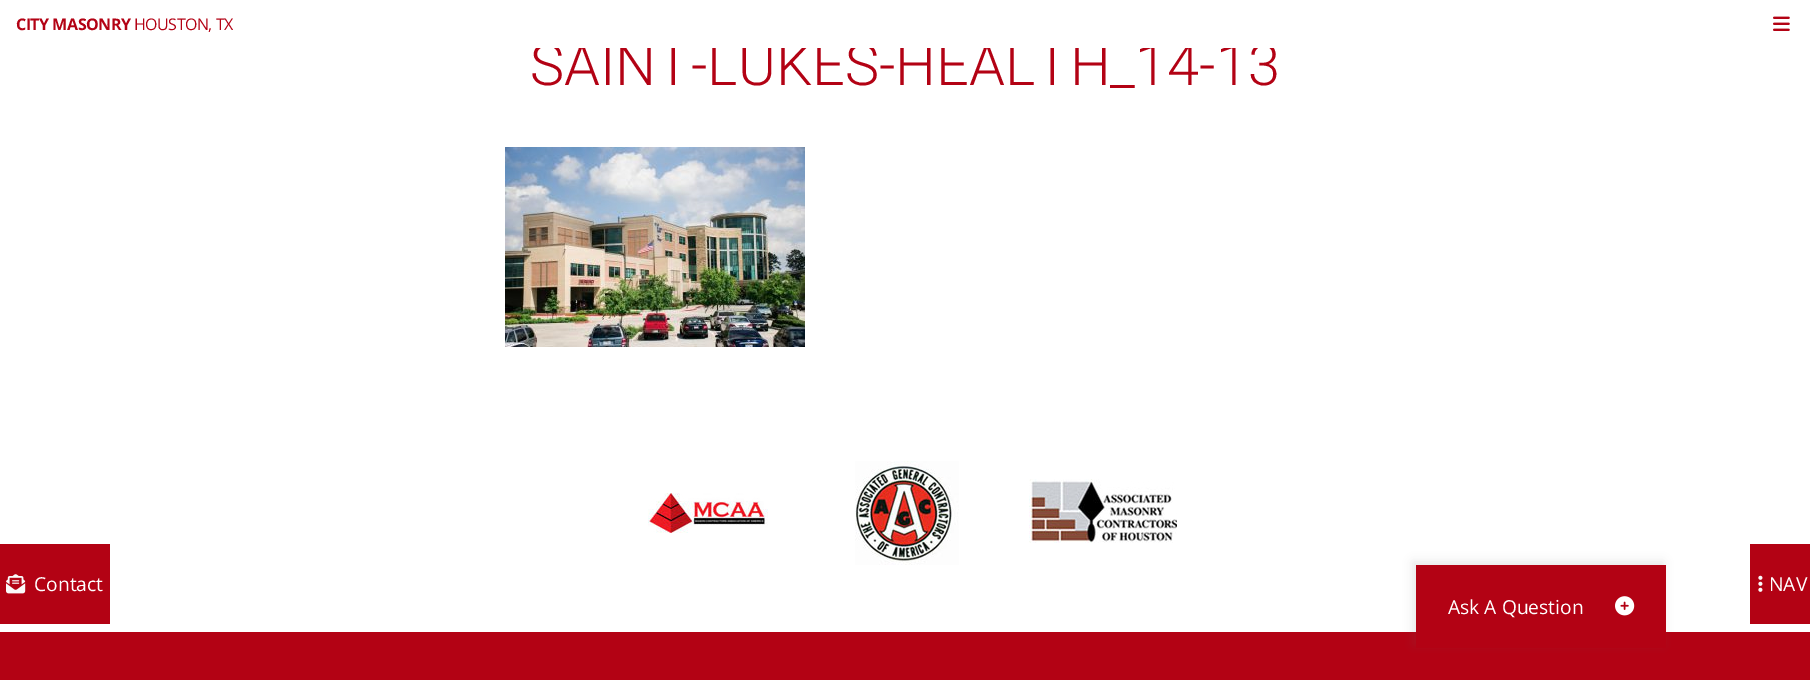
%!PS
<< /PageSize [1810 680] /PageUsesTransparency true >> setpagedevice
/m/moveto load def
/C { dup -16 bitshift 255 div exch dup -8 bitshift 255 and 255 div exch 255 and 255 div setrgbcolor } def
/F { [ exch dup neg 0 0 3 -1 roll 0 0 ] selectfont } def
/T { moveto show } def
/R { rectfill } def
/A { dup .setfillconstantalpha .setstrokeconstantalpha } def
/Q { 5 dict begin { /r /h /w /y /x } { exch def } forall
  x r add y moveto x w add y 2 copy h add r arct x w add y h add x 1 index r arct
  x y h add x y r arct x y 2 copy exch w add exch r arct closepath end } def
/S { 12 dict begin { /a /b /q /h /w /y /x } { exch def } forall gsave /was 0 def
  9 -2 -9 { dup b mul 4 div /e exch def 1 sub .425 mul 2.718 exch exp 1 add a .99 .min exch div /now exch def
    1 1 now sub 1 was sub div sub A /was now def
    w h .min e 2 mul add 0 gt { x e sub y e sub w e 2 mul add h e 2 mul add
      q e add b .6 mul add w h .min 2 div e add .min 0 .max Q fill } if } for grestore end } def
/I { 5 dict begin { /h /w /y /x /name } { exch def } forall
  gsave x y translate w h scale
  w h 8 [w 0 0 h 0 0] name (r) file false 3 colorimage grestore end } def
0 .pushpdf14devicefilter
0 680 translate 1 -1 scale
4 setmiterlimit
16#FFFFFF C
0 0 1810 680 R
/Roboto-Light 57.6 F
16#B30214 C
(SAINT-LUKES-HEALTH_14-13) 530 85 T
16#FFFFFF C
536 43 738 5 R
/OpenSans-Bold 16 F
16#B30214 C
16 30 m -.5 0 (CITY MASONRY) ashow
/OpenSans-Regular 16 F
134 30 m -.5 0 (HOUSTON, TX) ashow
(1.rgb) 1773 16 17 15 I
(2.rgb) 505 147 300 200 I
(3.rgb) 648 493 120 40 I
(4.rgb) 855 461 104 104 I
(5.rgb) 1029 479 148 64 I
0 632 1810 48 R
16#646464 C
1413 562 250 83 0 5 .15 S
16#B30214 C
1416 565 250 83 R
/OpenSans-Regular 19.25 F
16#FFFFFF C
(Ask A Question) 1448 614 T
(6.rgb) 1615 596 20 20 I
16#B30214 C
0 544 110 80 R
(7.rgb) 6 574 20 20 I
16#FFFFFF C
(Contact) 34 591 T
16#B30214 C
1750 544 60 80 R
(8.rgb) 1758 575 5 17 I
16#FFFFFF C
(NAV) 1769 591 T
.poppdf14devicefilter showpage
